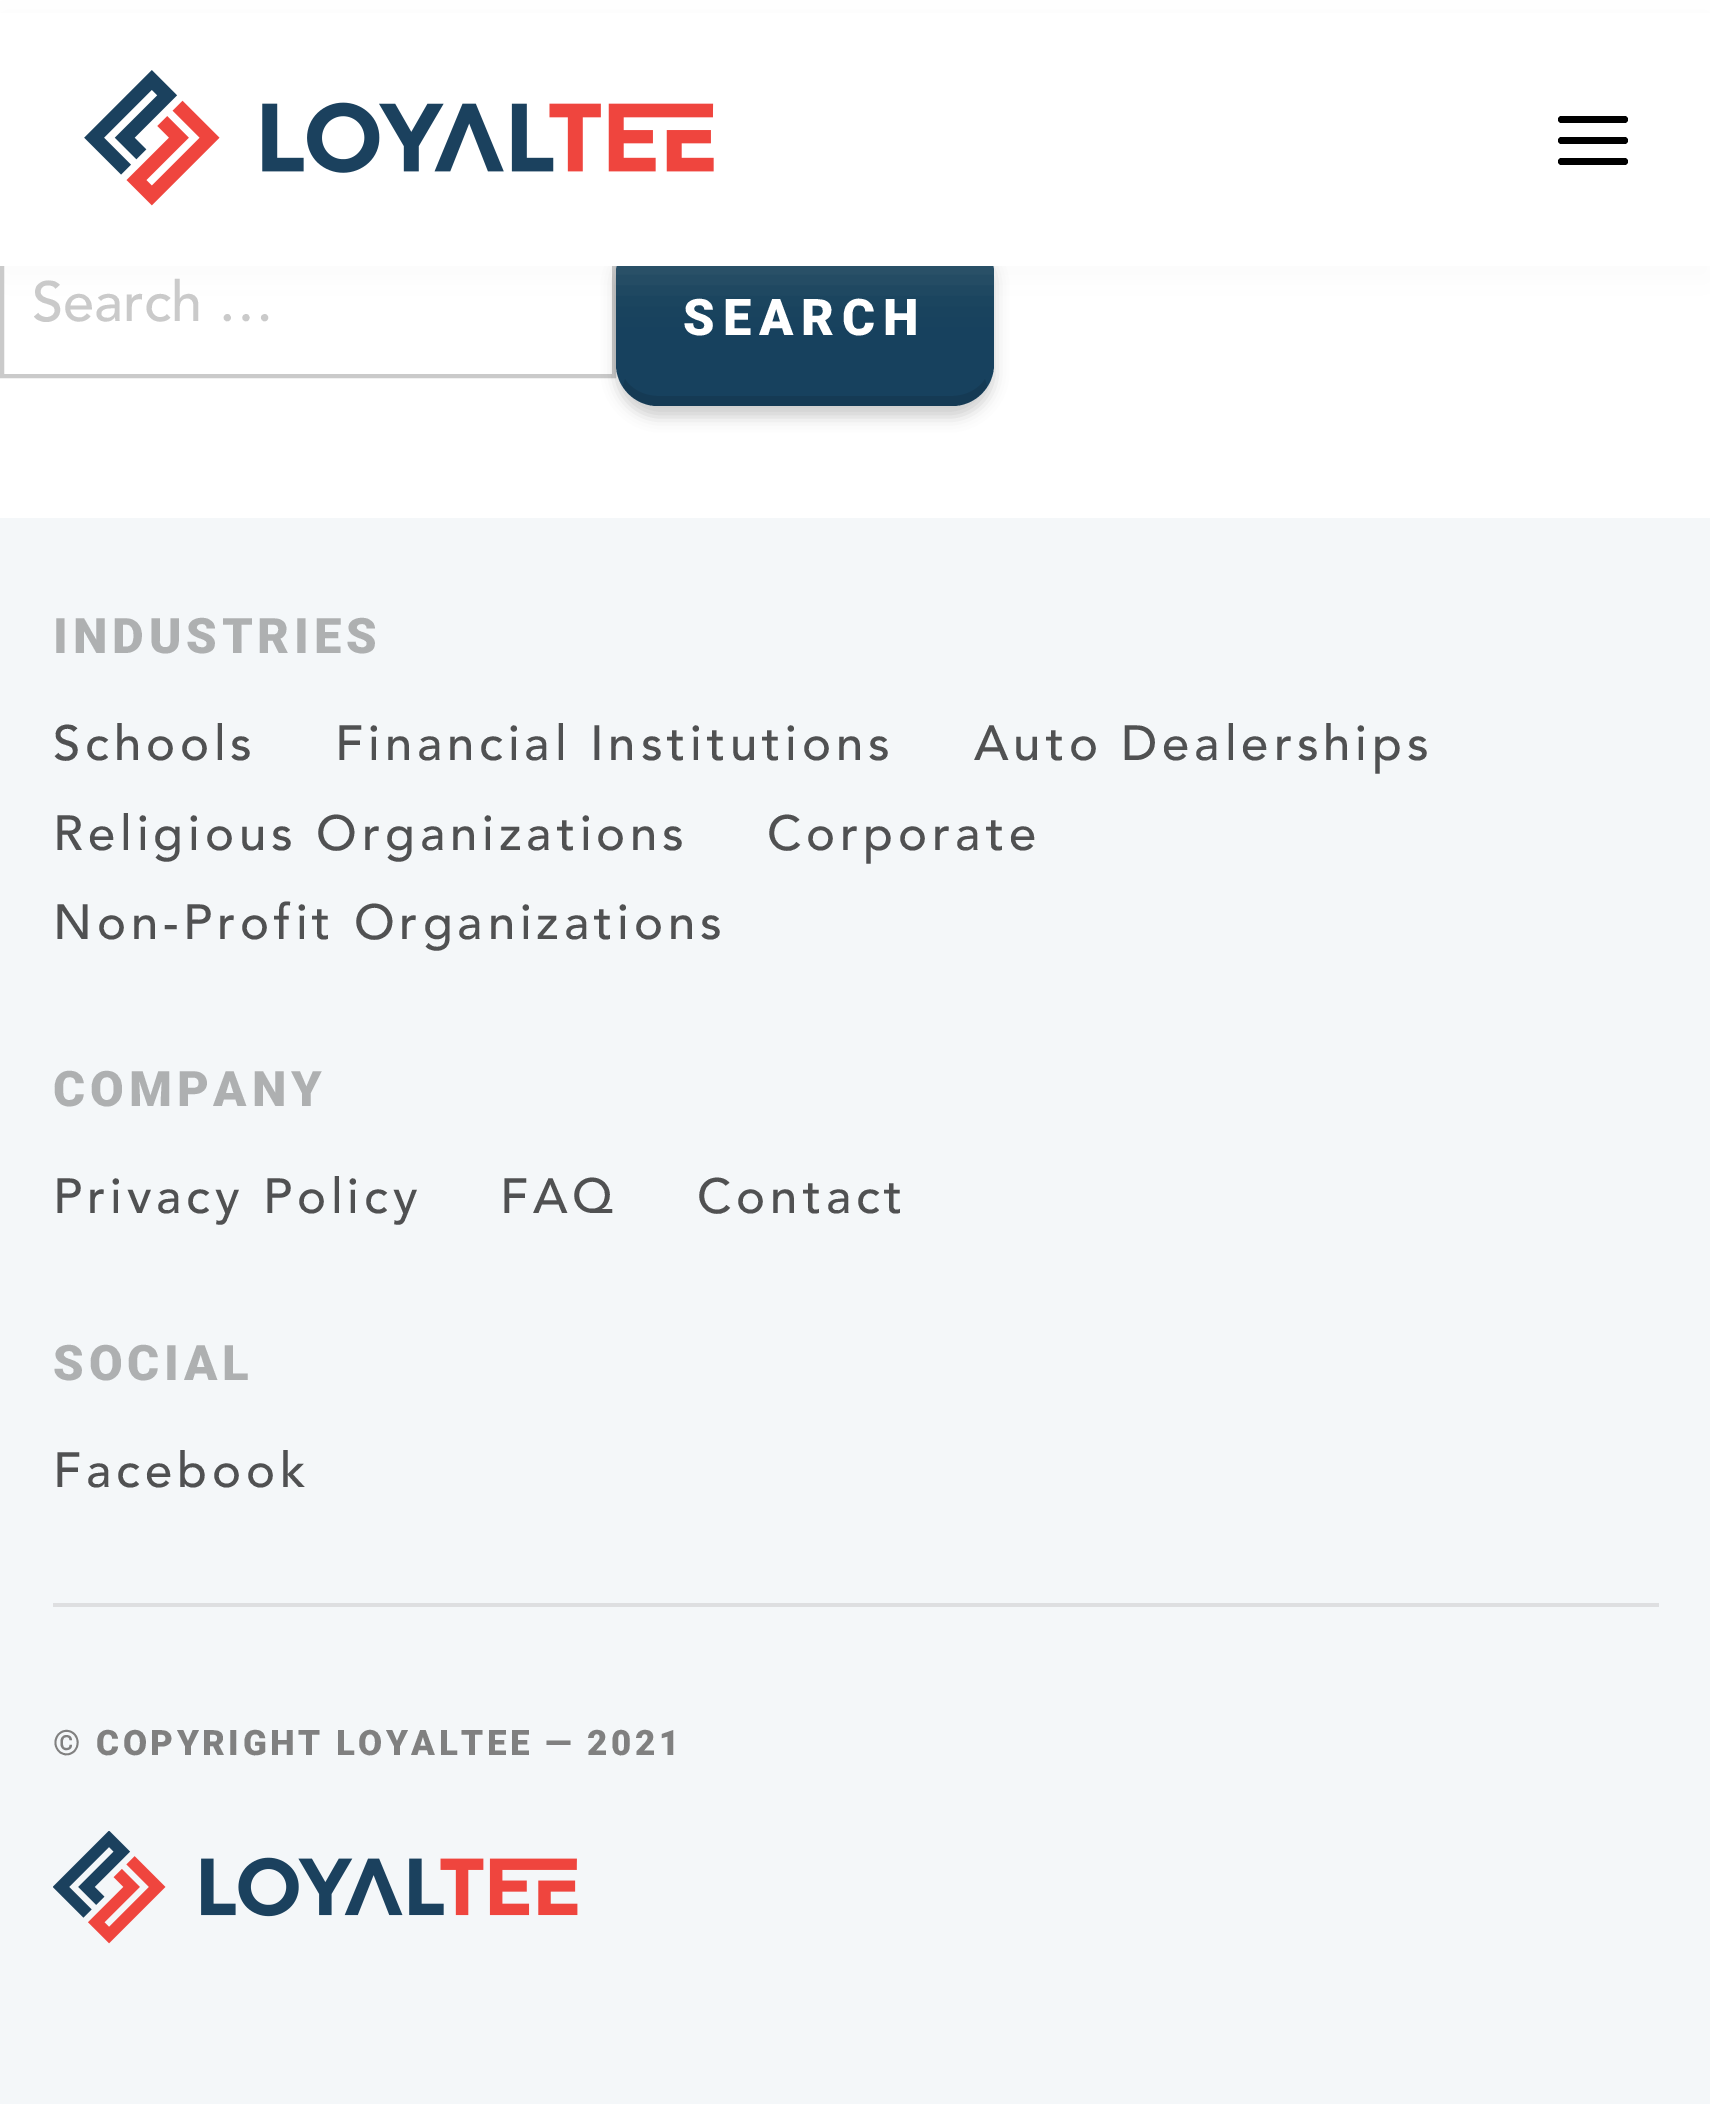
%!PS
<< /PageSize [1710 2127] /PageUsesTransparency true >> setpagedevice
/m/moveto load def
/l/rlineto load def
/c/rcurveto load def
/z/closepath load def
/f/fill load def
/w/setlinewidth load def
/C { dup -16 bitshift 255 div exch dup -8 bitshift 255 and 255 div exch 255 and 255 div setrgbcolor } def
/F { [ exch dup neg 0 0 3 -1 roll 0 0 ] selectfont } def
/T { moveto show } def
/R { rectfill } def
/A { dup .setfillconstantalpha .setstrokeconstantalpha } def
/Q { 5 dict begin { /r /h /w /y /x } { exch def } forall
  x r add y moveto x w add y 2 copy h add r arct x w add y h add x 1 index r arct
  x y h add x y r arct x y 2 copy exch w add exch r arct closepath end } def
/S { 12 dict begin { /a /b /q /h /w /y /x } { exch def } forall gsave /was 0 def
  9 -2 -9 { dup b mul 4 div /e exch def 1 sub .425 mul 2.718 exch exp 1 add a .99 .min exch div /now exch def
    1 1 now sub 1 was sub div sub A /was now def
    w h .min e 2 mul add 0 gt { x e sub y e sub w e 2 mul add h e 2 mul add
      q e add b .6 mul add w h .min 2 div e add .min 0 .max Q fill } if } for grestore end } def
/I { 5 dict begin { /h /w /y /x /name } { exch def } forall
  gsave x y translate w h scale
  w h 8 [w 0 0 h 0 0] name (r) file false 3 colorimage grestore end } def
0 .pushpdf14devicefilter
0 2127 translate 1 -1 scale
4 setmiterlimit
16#FFFFFF C
0 0 1710 2127 R
16#CACACA C
4 w
2 233 612 143 rectstroke
16#0A0A0A C
616 242 378 175 42 7 .2 S
16#17415E C
616 231 378 175 42 Q f
16#D6D6D6 C
0 14 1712 266 0 21 .13 S
16#FFFFFF C
0 13 1710 253 R
(1.rgb) 84 70 630 136 I
16#000000 C
1558 116 70 7 3.5 Q f
1558 137 70 7 3.5 Q f
1558 158 70 7 3.5 Q f
/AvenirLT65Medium-Medium 56 F
16#CACACA C
(Search …) 32 321 T
0.1 A
16#000000 C
658 406 m 294 0 l 15 0 28 -8 35 -20 c -2 -7 l -6 10 -19 17 -33 17 c -294 0 l -14 0 -27 -7 -33 -17 c -2 7 l 7 12 20 20 35 20 c z f
/Roboto-Black 50.5 F
1 A
16#FFFFFF C
683 335 m 8 0 (SEARCH) ashow
16#F4F7F9 C
0 518 1710 1586 R
16#DEDFE1 C
53 1603 1606 4 R
/Roboto-Black 49 F
16#AEB0B1 C
53 653 m 4.9 0 (INDUSTRIES) ashow
/AvenirLT65Medium-Medium 49 F
16#505152 C
53 760 m 4.9 0 (Schools) ashow
335 760 m 4.9 0 (Financial Institutions) ashow
974 760 m 4.9 0 (Auto Dealerships) ashow
53 850 m 4.9 0 (Religious Organizations) ashow
767 850 m 4.9 0 (Corporate) ashow
53 939 m 4.9 0 (Non-Profit Organizations) ashow
/Roboto-Black 49 F
16#AEB0B1 C
53 1106 m 4.9 0 (COMPANY) ashow
/AvenirLT65Medium-Medium 49 F
16#505152 C
53 1213 m 4.9 0 (Privacy Policy) ashow
500 1213 m 4.9 0 (FAQ) ashow
697 1213 m 4.9 0 (Contact) ashow
/Roboto-Black 49 F
16#AEB0B1 C
53 1380 m 4.9 0 (SOCIAL) ashow
/AvenirLT65Medium-Medium 49 F
16#505152 C
53 1487 m 4.9 0 (Facebook) ashow
/Roboto-Black 35 F
16#808080 C
53 1755 m 3.5 0 (© COPYRIGHT LOYALTEE — 2021) ashow
(2.rgb) 53 1831 525 113 I
.poppdf14devicefilter showpage
